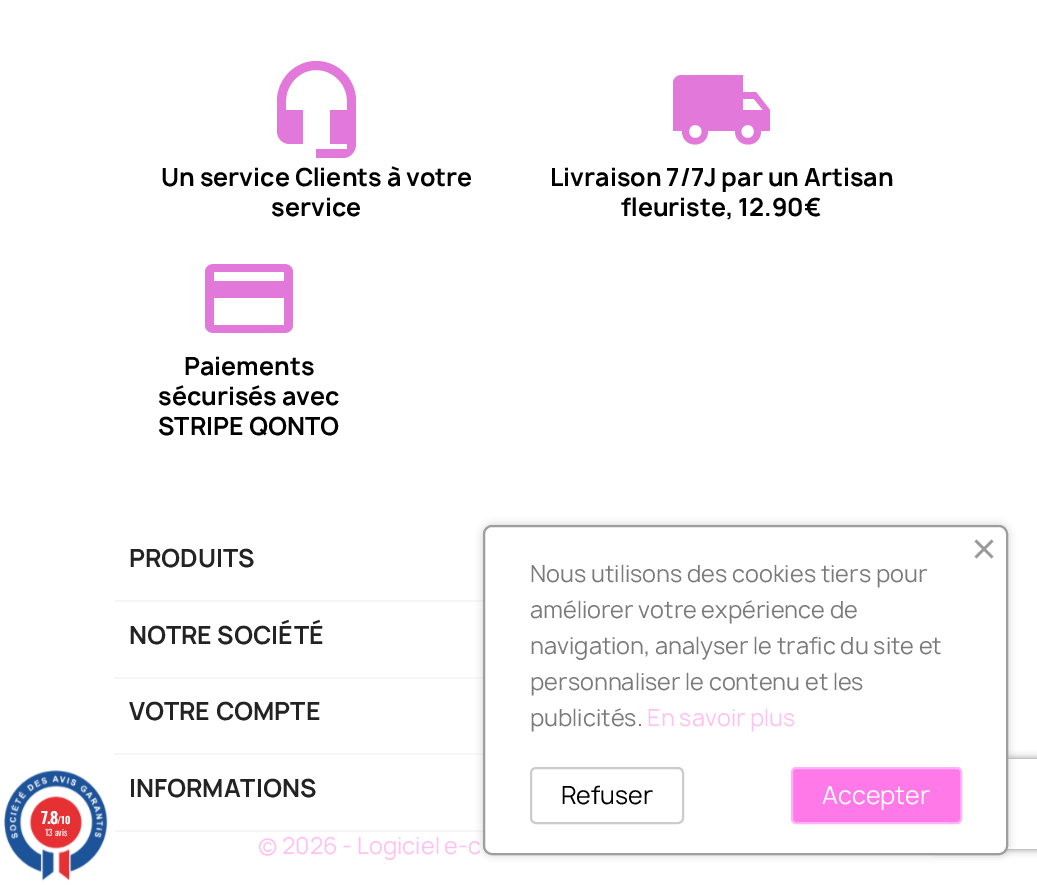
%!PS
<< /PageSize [1037 885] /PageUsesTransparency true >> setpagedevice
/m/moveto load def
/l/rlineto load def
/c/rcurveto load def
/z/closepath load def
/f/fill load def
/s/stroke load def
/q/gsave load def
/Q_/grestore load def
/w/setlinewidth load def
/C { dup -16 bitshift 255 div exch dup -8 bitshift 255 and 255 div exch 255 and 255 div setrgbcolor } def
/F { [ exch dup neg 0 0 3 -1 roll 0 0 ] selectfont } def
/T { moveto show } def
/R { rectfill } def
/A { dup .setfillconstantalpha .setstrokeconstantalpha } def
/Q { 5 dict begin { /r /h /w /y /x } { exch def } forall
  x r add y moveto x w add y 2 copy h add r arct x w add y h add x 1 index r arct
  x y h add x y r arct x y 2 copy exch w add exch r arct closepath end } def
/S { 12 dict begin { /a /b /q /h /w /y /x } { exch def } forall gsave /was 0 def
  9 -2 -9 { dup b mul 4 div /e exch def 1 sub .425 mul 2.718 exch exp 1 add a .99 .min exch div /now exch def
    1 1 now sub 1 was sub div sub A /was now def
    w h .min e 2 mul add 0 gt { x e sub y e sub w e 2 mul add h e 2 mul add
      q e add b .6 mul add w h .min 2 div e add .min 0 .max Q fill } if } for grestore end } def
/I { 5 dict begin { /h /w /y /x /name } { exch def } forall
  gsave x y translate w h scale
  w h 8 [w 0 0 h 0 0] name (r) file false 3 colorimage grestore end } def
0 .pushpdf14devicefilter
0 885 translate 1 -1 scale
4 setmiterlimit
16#FFFFFF C
0 0 1037 885 R
16#E278DA C
316 61 m -21 0 -39 18 -39 40 c 0 30 l 0 8 6 13 13 13 c 13 0 l 0 -34 l -17 0 l 0 -9 l 0 -17 14 -31 30 -31 c 17 0 31 14 31 31 c 0 9 l -17 0 l 0 34 l 17 0 l 0 5 l -31 0 l 0 9 l 27 0 l 7 0 13 -6 13 -14 c 0 -43 l 0 -22 -18 -40 -40 -40 c z eofill
/Manrope-Bold 24 F
16#000000 C
(Un service Clients à votre) 161 186 T
(service) 271 216 T
16#E278DA C
756 92 m -13 0 l 0 -17 l -61 0 l -5 0 -9 3 -9 8 c 0 48 l 9 0 l 0 18 26 18 26 0 c 27 0 l 0 18 26 18 26 0 c 9 0 l 0 -21 l z 695 138 m -8 0 -8 -13 0 -13 c 9 0 9 13 0 13 c z 754 99 m 9 11 l -20 0 l 0 -11 l z 748 138 m -9 0 -9 -13 0 -13 c 8 0 8 13 0 13 c z f
16#000000 C
(Livraison 7/7J par un Artisan) 550 186 T
(fleuriste, 12.90€) 621 216 T
16#E278DA C
284 264 m -70 0 l -5 0 -9 3 -9 8 c 0 53 l 0 5 4 8 9 8 c 70 0 l 5 0 9 -3 9 -8 c 0 -53 l 0 -5 -4 -8 -9 -8 c z 284 325 m -70 0 l 0 -27 l 70 0 l z 284 281 m -70 0 l 0 -9 l 70 0 l z f
16#000000 C
(Paiements) 184 375 T
(sécurisés avec) 158 405 T
(STRIPE QONTO) 158 435 T
q
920 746 m 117 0 l 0 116 l -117 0 l z 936 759 m 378 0 l 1.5 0 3 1.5 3 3 c 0 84 l 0 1.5 -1.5 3 -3 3 c -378 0 l -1.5 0 -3 -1.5 -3 -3 c 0 -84 l 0 -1.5 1.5 -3 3 -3 c z eoclip newpath
16#808080 C
933 759 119 90 3 4 1 S
Q_
16#F6F6F6 C
114 600 369 2 R
16#232323 C
(PRODUITS) 129 567 T
16#F6F6F6 C
114 677 369 2 R
16#232323 C
(NOTRE SOCIÉTÉ) 129 644 T
16#F6F6F6 C
114 753 369 2 R
16#232323 C
(VOTRE COMPTE) 129 720 T
16#F6F6F6 C
114 830 369 2 R
16#232323 C
(INFORMATIONS) 129 797 T
/Manrope-Regular 22.5 F
16#FFC0F2 C
(© 2026 - Logiciel e-c) 258 854 T
16#9E9E9E C
486 528 519 324 6 5 1 S
16#FFFFFF C
484 526 523 328 8 Q q f Q_
16#9E9E9E C
2 w
s
16#999999 C
974.5 556.5 m 17 -17 l 2 2 l -17 17 l z f
976.5 539.5 m 17 17 l -2 2 l -17 -17 l z f
16#7A7A7A C
(Nous utilisons des cookies tiers pour) 530 582 T
(améliorer votre expérience de) 530 618 T
(navigation, analyser le trafic du site et) 530 654 T
(personnaliser le contenu et les) 530 690 T
(publicités.) 530 726 T
16#FFC0F2 C
(En savoir plus) 647 726 T
16#CCCCCC C
531 768 152 55 5 Q s
/Manrope-Regular 24 F
16#000000 C
(Refuser) 561 804 T
16#FF79E9 C
792 768 169 55 4 Q q f Q_
16#FFB1F7 C
s
16#FFFFFF C
(Accepter) 822 804 T
(1.rgb) 4 770 104 111 I
/Oswald-Bold 16 F
41 824 m -1 0 (7.8) ashow
/Oswald-Bold 10 F
(/10) 57 824 T
/Oswald-Regular 9 F
(13 avis) 45 836 T
.poppdf14devicefilter showpage
